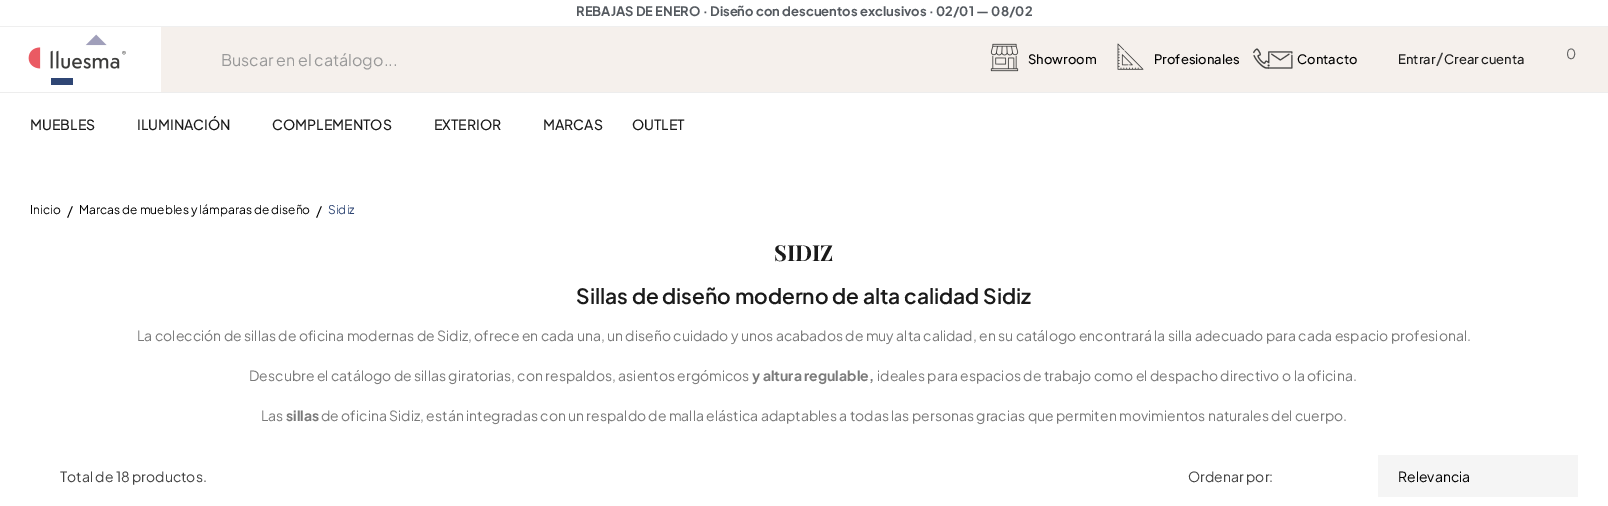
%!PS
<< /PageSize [1608 506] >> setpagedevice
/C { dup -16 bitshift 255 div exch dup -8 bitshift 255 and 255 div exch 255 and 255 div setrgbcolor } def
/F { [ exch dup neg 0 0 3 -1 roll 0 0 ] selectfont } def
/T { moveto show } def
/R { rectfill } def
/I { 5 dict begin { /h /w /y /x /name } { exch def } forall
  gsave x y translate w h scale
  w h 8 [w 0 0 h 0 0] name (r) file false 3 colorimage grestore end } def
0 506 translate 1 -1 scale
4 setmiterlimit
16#FFFFFF C
0 0 1608 506 R
16#EFEFEF C
0 26 1608 1 R
/PlusJakartaSans-Bold 13 F
16#54595F C
(REBAJAS DE ENERO · Diseño con descuentos exclusivos · 02/01 — 08/02) 576 16 T
16#EDEDED C
0 92 1608 1 R
(1.rgb) 28 34 98 51 I
16#F5F0EC C
161 27 1447 65 R
/PlusJakartaSans-Regular 16 F
16#999999 C
(Buscar en el catálogo...) 221 66 T
(2.rgb) 990 43 29 29 I
/PlusJakartaSans-Medium 13 F
16#000000 C
(Showroom) 1028 64 T
(3.rgb) 1117 43 27 27 I
(Profesionales) 1154 64 T
(4.rgb) 1253 48 40 21 I
(Contacto) 1297 64 T
16#1A1A1A C
(Entrar) 1398 64 T
/PlusJakartaSans-Medium 16 F
16#444444 C
(/) 1436 64 T
/PlusJakartaSans-Medium 13 F
16#1A1A1A C
(Crear cuenta) 1444 64 T
/PlusJakartaSans-Regular 14 F
16#666666 C
(0) 1566 59 T
/PlusJakartaSans-Medium 14 F
16#1A1A1A C
(MUEBLES) 30 130 T
(ILUMINACIÓN) 137 130 T
(COMPLEMENTOS) 272 130 T
(EXTERIOR) 434 130 T
(MARCAS) 543 130 T
(OUTLET) 632 130 T
/PlusJakartaSans-Regular 12 F
16#000000 C
(Inicio) 30 214 T
/PlusJakartaSans-Regular 14 F
(/) 67 216 T
/PlusJakartaSans-Regular 12 F
(Marcas de muebles y lámparas de diseño) 79 214 T
/PlusJakartaSans-Regular 14 F
(/) 316 216 T
/PlusJakartaSans-Regular 12 F
16#2F4674 C
(Sidiz) 328 214 T
/PlayfairDisplay-Bold 22 F
16#1A1A1A C
(SIDIZ) 774 261 T
/PlusJakartaSans-SemiBold 21 F
(Sillas de diseño moderno de alta calidad Sidiz) 576 304 T
/PlusJakartaSans-Regular 14 F
16#7A7A7A C
(La colección de sillas de oficina modernas de Sidiz, ofrece en cada una, un diseño cuidado y unos acabados de muy alta calidad, en su catálogo encontrará la silla adecuado para cada espacio profesional.) 137 341 T
(Descubre el catálogo de sillas giratorias, con respaldos, asientos ergómicos) 249 381 T
/PlusJakartaSans-Bold 14 F
(y altura regulable,) 752 381 T
/PlusJakartaSans-Regular 14 F
(ideales para espacios de trabajo como el despacho directivo o la oficina.) 877 381 T
(Las) 261 421 T
/PlusJakartaSans-Bold 14 F
(sillas) 286 421 T
/PlusJakartaSans-Regular 14 F
(de oficina Sidiz, están integradas con un respaldo de malla elástica adaptables a todas las personas gracias que permiten movimientos naturales del cuerpo.) 321 421 T
16#444444 C
(Total de 18 productos.) 60 482 T
(Ordenar por:) 1188 482 T
16#F5F5F5 C
1378 455 200 42 R
16#000000 C
(Relevancia) 1398 482 T
showpage
